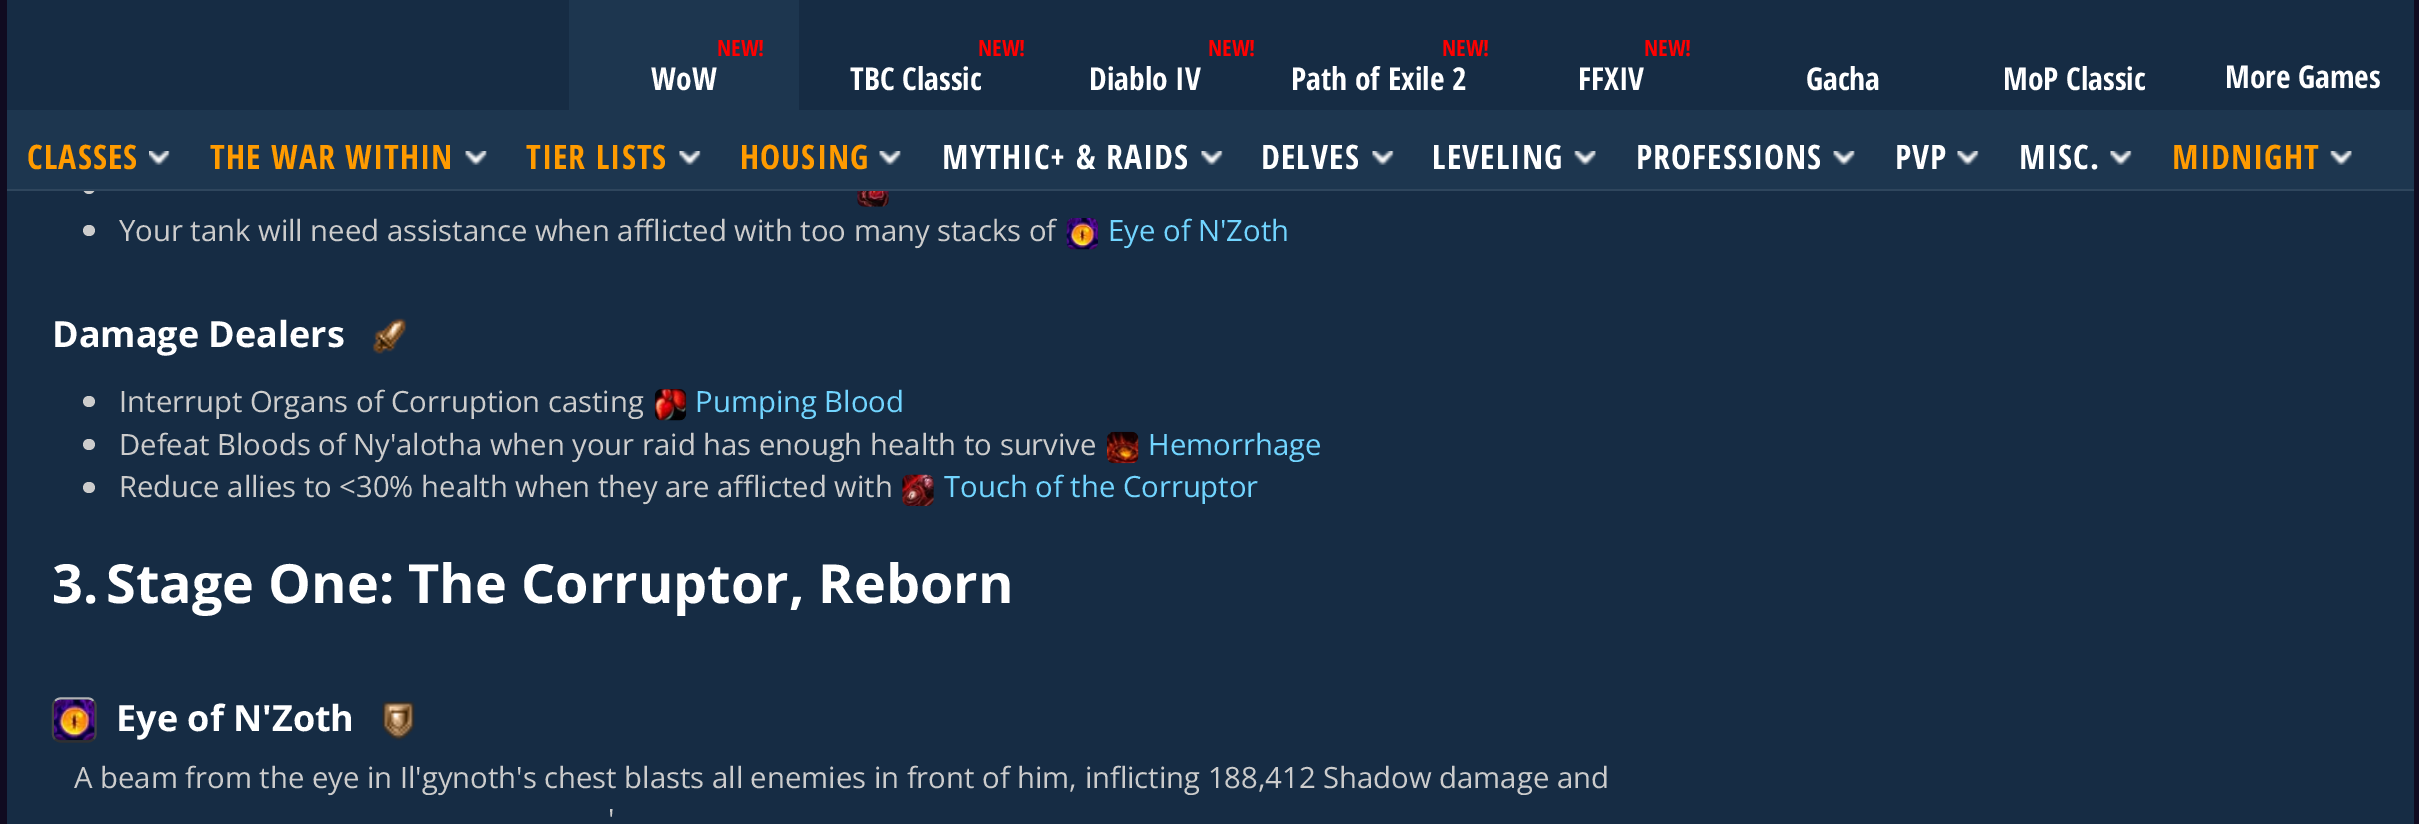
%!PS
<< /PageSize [2419 824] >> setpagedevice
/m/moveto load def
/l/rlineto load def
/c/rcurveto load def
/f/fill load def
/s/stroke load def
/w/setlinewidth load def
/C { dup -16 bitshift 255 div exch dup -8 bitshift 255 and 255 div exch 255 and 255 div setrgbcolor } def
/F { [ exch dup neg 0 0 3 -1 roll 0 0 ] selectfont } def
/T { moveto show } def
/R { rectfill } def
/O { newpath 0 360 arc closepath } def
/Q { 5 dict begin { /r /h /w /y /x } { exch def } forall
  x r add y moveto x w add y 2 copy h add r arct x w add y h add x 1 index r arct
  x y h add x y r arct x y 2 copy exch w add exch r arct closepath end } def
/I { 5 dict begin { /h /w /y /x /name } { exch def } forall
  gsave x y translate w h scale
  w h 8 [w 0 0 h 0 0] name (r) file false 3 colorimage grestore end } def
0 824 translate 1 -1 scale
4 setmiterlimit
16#100B20 C
0 0 2419 824 R
16#162C44 C
7 0 2407 110 R
16#1D364F C
569 0 230 110 R
/OpenSansCondensed-Bold 22.5 F
16#FF0000 C
(NEW!) 717 56 T
/OpenSansCondensed-Bold 31.5 F
16#FFFFFF C
(WoW) 651 90 T
/OpenSansCondensed-Bold 22.5 F
16#FF0000 C
(NEW!) 978 56 T
/OpenSansCondensed-Bold 31.5 F
16#FFFFFF C
(TBC Classic) 850 90 T
/OpenSansCondensed-Bold 22.5 F
16#FF0000 C
(NEW!) 1208 56 T
/OpenSansCondensed-Bold 31.5 F
16#FFFFFF C
(Diablo IV) 1089 90 T
/OpenSansCondensed-Bold 22.5 F
16#FF0000 C
(NEW!) 1442 56 T
/OpenSansCondensed-Bold 31.5 F
16#FFFFFF C
(Path of Exile 2) 1291 90 T
/OpenSansCondensed-Bold 22.5 F
16#FF0000 C
(NEW!) 1644 56 T
/OpenSansCondensed-Bold 31.5 F
16#FFFFFF C
(FFXIV) 1578 90 T
(Gacha) 1806 90 T
(MoP Classic) 2003 90 T
(More Games) 2225 88 T
16#162C44 C
7 191 2407 633 R
16#CCCCCC C
89 188 6 O f
16#1D364F C
7 110 2407 79 R
16#2F465D C
7 189 2407 2 R
/OpenSansCondensed-Bold 33.75 F
16#FF9B00 C
27 169 m 1.1 0 (CLASSES) ashow
(1.rgb) 149 151 21 14 I
210 169 m 1.1 0 (THE WAR WITHIN) ashow
(2.rgb) 465 151 22 14 I
526 169 m 1.1 0 (TIER LISTS) ashow
(3.rgb) 679 151 22 14 I
740 169 m 1.1 0 (HOUSING) ashow
(2.rgb) 879 151 22 14 I
16#FFFFFF C
942 169 m 1.1 0 (MYTHIC+ & RAIDS) ashow
(3.rgb) 1201 151 22 14 I
1261 169 m 1.1 0 (DELVES) ashow
(3.rgb) 1372 151 22 14 I
1432 169 m 1.1 0 (LEVELING) ashow
(4.rgb) 1574 151 22 14 I
1636 169 m 1.1 0 (PROFESSIONS) ashow
(2.rgb) 1833 151 22 14 I
1895 169 m 1.1 0 (PVP) ashow
(5.rgb) 1957 151 22 14 I
2019 169 m 1.1 0 (MISC.) ashow
(3.rgb) 2110 151 22 14 I
16#FF9B00 C
2172 169 m 1.1 0 (MIDNIGHT) ashow
(6.rgb) 2330 151 22 14 I
(7.rgb) 857 191 32 16 I
16#CCCCCC C
83 225 12 11 5.5 Q f
/OpenSans-Regular 29.25 F
(Your tank will need assistance when afflicted with too many stacks of) 119 241 T
(8.rgb) 1066 218 32 32 I
16#72D5FF C
(Eye of N'Zoth) 1108 241 T
/OpenSans-Bold 36 F
16#FFFFFF C
(Damage Dealers) 52 347 T
(9.rgb) 372 318 35 36 I
16#CCCCCC C
83 396 12 11 5.5 Q f
/OpenSans-Regular 29.25 F
(Interrupt Organs of Corruption casting) 119 412 T
(10.rgb) 654 389 33 32 I
16#72D5FF C
(Pumping Blood) 695 412 T
16#CCCCCC C
83 439 12 11 5.5 Q f
(Defeat Bloods of Ny'alotha when your raid has enough health to survive) 119 455 T
(11.rgb) 1107 431 32 33 I
16#72D5FF C
(Hemorrhage) 1148 455 T
16#CCCCCC C
83 482 12 11 5.5 Q f
(Reduce allies to <30% health when they are afflicted with) 119 497 T
(12.rgb) 902 474 32 32 I
16#72D5FF C
(Touch of the Corruptor) 944 497 T
/OpenSans-Bold 54 F
16#FFFFFF C
(3.) 52 603 T
(Stage One: The Corruptor, Reborn) 106 603 T
16#B1B2B4 C
2.2 w
55 701 m 1.5 -1.5 3.5 -2.5 6 -2.5 c 27 0 l 2 0 4 1 5.5 2.5 c s
16#434445 C
93.5 701 m 1.5 1.5 2 3.5 2 5.5 c 0 27 l 0 2 -.5 4 -2 5.5 c s
16#2F3032 C
93.5 739 m -1.5 1.5 -3.5 2.5 -5.5 2.5 c -27 0 l -2.5 0 -4.5 -1 -6 -2.5 c s
16#434445 C
55 739 m -1.5 -1.5 -2 -3.5 -2 -5.5 c 0 -27 l 0 -2 .5 -4 2 -5.5 c s
(13.rgb) 54 699 41 41 I
/OpenSans-Bold 36 F
16#FFFFFF C
(Eye of N'Zoth) 116 731 T
(14.rgb) 382 701 33 40 I
/OpenSans-Regular 29.25 F
16#CCCCCC C
(A beam from the eye in Il'gynoth's chest blasts all enemies in front of him, inflicting 188,412 Shadow damage and) 74 788 T
(') 608 830 T
showpage
